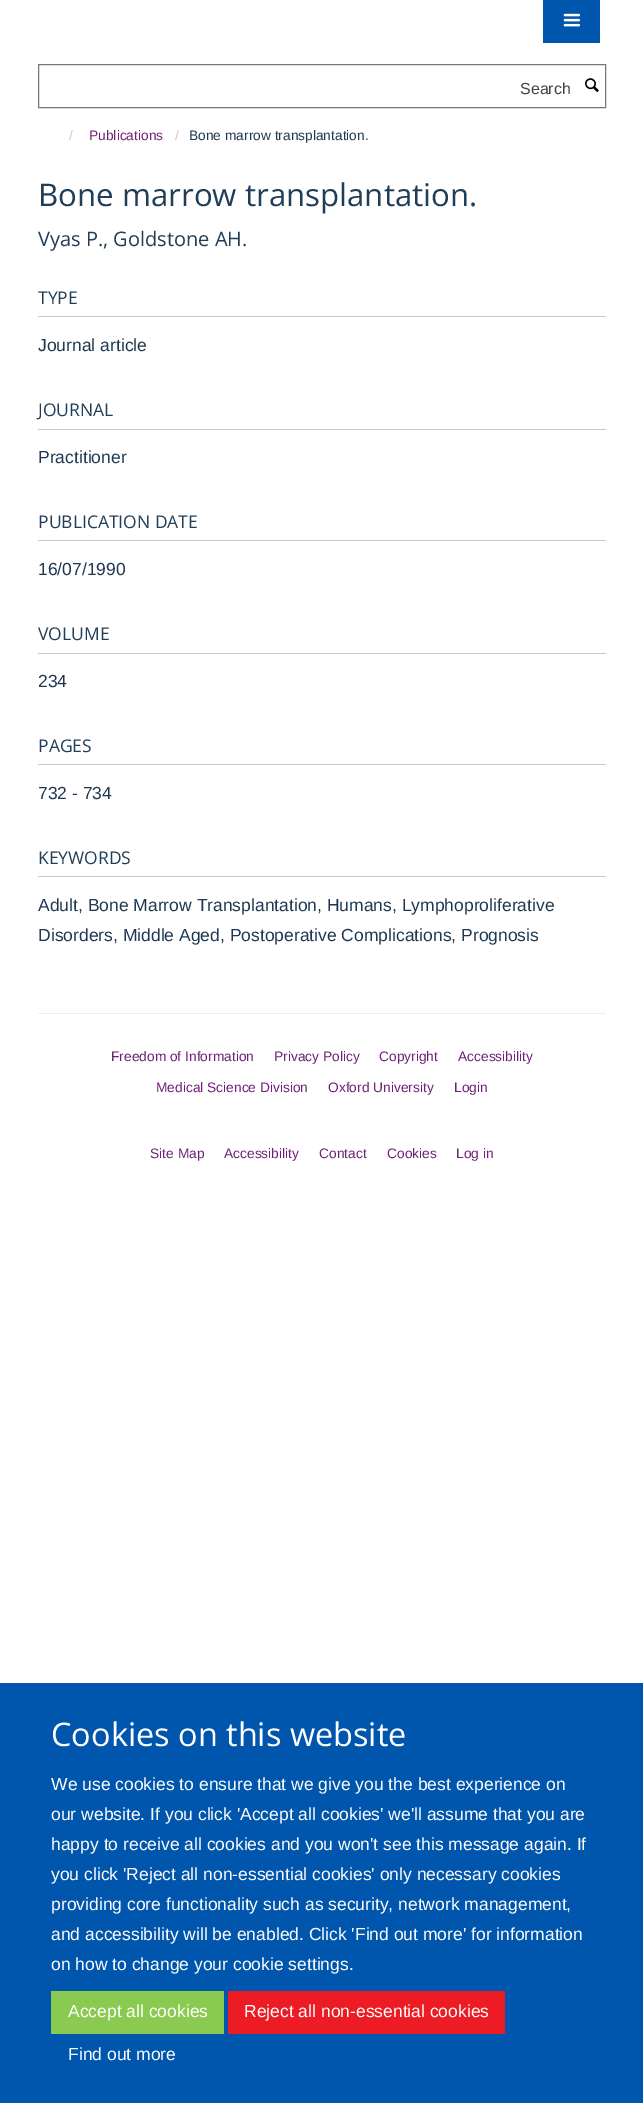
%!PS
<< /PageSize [643 2103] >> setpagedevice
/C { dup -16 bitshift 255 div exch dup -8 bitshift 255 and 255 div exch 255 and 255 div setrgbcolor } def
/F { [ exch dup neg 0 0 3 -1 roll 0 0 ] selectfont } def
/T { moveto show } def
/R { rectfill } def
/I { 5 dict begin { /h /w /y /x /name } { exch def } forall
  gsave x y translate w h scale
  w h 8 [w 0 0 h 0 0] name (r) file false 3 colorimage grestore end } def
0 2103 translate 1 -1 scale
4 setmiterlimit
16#FFFFFF C
0 0 643 2103 R
16#0055AD C
543 0 57 43 R
(1.rgb) 563 13 18 14 I
16#777777 C
38.5 64.5 567 43 rectstroke
/LiberationSans-Regular 16 F
16#444444 C
(Search) 520 94 T
(2.rgb) 585 78 14 14 I
/LiberationSans-Regular 13.75 F
16#CCCCCC C
(/) 69 140 T
16#6F2078 C
(Publications) 89 140 T
16#CCCCCC C
(/) 175 140 T
16#1D3850 C
(Bone marrow transplantation.) 189 140 T
/OpenSans-Regular 31.25 F
16#203E58 C
(Bone marrow transplantation.) 38 206 T
/OpenSans-Regular 20 F
(Vyas P., Goldstone AH.) 38 246 T
16#C6CACF C
38 316 568 1 R
/OpenSans-Regular 17.5 F
16#203E58 C
(TYPE) 38 304 T
/LiberationSans-Regular 17.5 F
16#1D3850 C
(Journal article) 38 351 T
16#C6CACF C
38 429 568 1 R
/OpenSans-Regular 17.5 F
16#203E58 C
(JOURNAL) 38 416 T
/LiberationSans-Regular 17.5 F
16#1D3850 C
(Practitioner) 38 463 T
16#C6CACF C
38 540 568 1 R
/OpenSans-Regular 17.5 F
16#203E58 C
(PUBLICATION DATE) 38 528 T
/LiberationSans-Regular 17.5 F
16#1D3850 C
(16/07/1990) 38 575 T
16#C6CACF C
38 653 568 1 R
/OpenSans-Regular 17.5 F
16#203E58 C
(VOLUME) 38 640 T
/LiberationSans-Regular 17.5 F
16#1D3850 C
(234) 38 687 T
16#C6CACF C
38 764 568 1 R
/OpenSans-Regular 17.5 F
16#203E58 C
(PAGES) 38 752 T
/LiberationSans-Regular 17.5 F
16#1D3850 C
(732 - 734) 38 799 T
16#C6CACF C
38 876 568 1 R
/OpenSans-Regular 17.5 F
16#203E58 C
(KEYWORDS) 38 864 T
/LiberationSans-Regular 17.5 F
16#1D3850 C
(Adult, Bone Marrow Transplantation, Humans, Lymphoproliferative) 38 911 T
(Disorders, Middle Aged, Postoperative Complications, Prognosis) 38 941 T
16#EEEEEE C
38 1013 568 1 R
/LiberationSans-Regular 13.75 F
16#6F2078 C
(Freedom of Information) 111 1061 T
(Privacy Policy) 274 1061 T
(Copyright) 379 1061 T
(Accessibility) 458 1061 T
(Medical Science Division) 156 1092 T
(Oxford University) 328 1092 T
(Login) 454 1092 T
(Site Map) 150 1158 T
(Accessibility) 224 1158 T
(Contact) 319 1158 T
(Cookies) 387 1158 T
(Log in) 456 1158 T
16#0055AD C
0 1683 643 420 R
/OpenSans-Regular 32.5 F
16#FFFFFF C
(Cookies on this website) 51 1746 T
/LiberationSans-Regular 17.5 F
(We use cookies to ensure that we give you the best experience on) 51 1790 T
(our website. If you click 'Accept all cookies' we'll assume that you are) 51 1820 T
(happy to receive all cookies and you won't see this message again. If) 51 1850 T
(you click 'Reject all non-essential cookies' only necessary cookies) 51 1880 T
(providing core functionality such as security, network management,) 51 1910 T
(and accessibility will be enabled. Click 'Find out more' for information) 51 1940 T
(on how to change your cookie settings.) 51 1970 T
16#8BCA50 C
51 1991 173 43 R
16#FFFFFF C
(Accept all cookies) 68 2017 T
16#ED1C24 C
228 1991 277 43 R
16#FFFFFF C
(Reject all non-essential cookies) 244 2017 T
(Find out more) 68 2060 T
showpage
